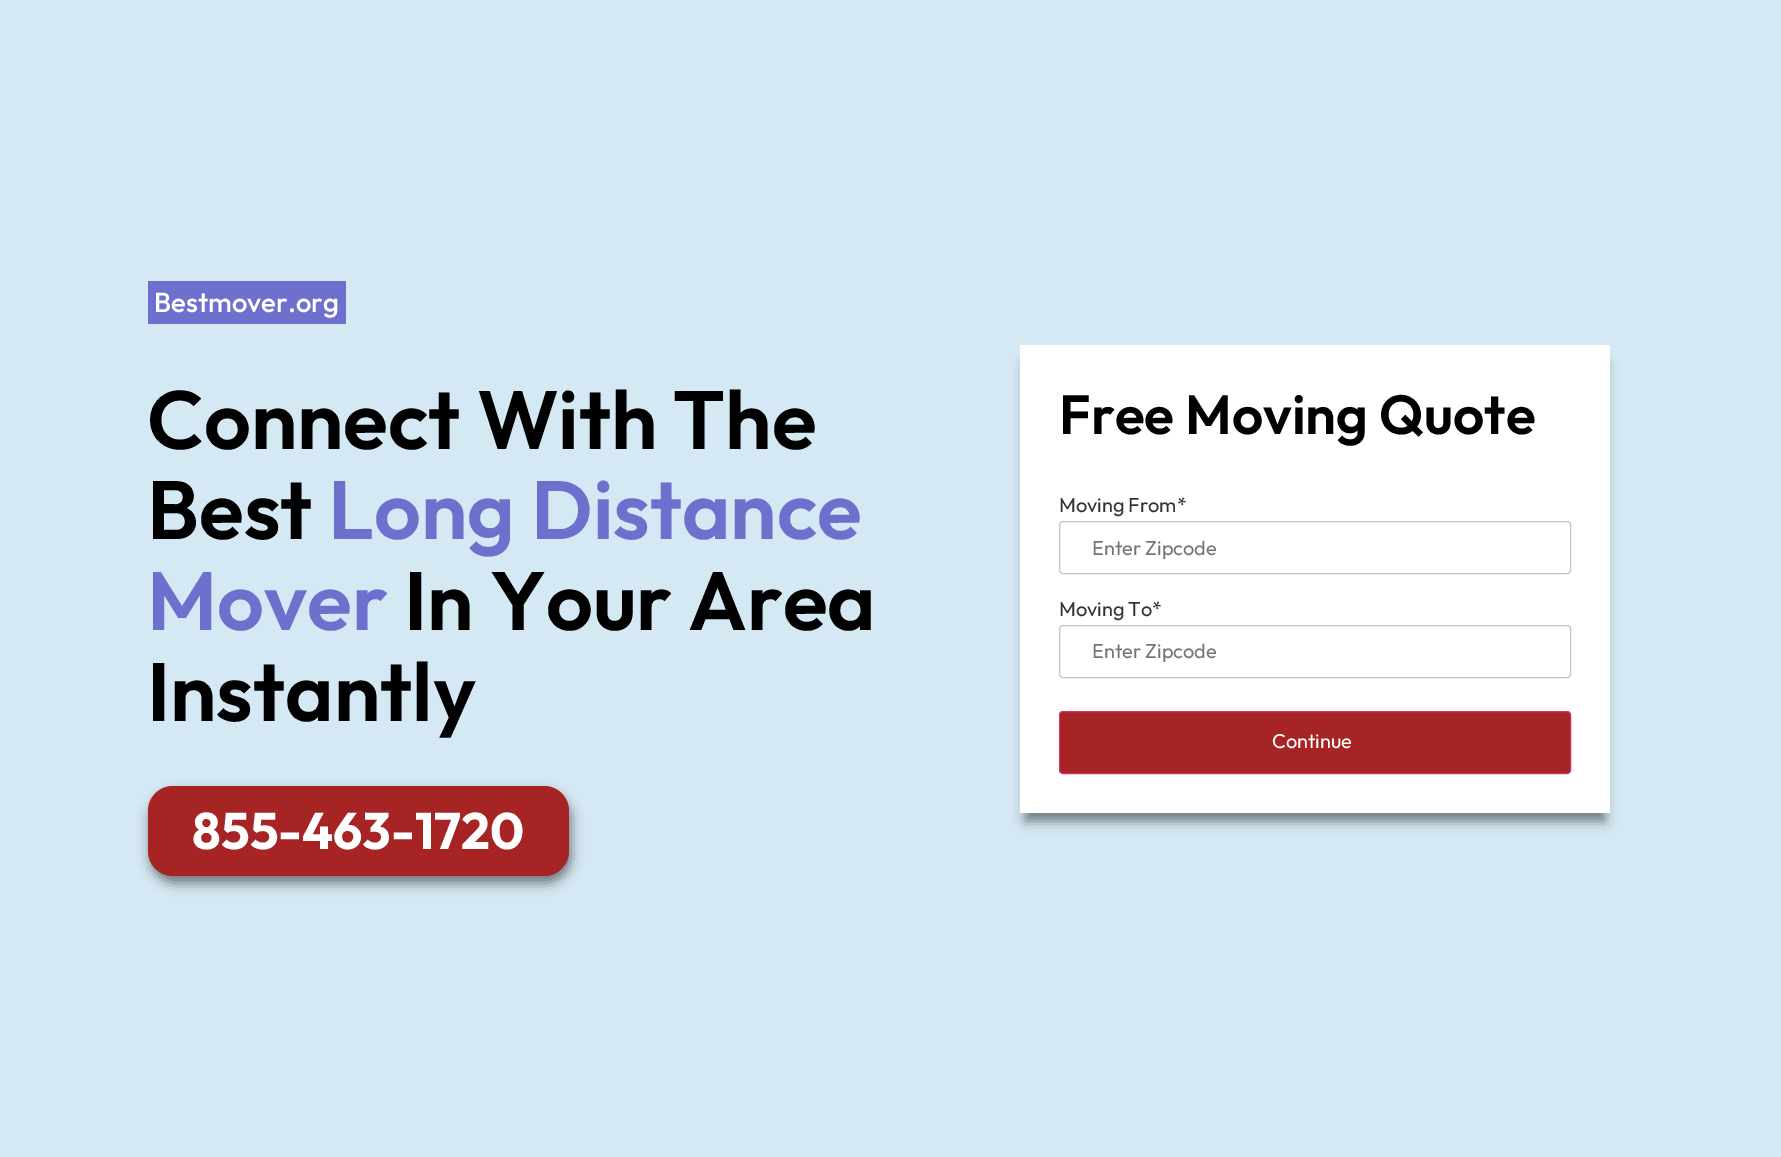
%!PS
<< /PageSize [1781 1157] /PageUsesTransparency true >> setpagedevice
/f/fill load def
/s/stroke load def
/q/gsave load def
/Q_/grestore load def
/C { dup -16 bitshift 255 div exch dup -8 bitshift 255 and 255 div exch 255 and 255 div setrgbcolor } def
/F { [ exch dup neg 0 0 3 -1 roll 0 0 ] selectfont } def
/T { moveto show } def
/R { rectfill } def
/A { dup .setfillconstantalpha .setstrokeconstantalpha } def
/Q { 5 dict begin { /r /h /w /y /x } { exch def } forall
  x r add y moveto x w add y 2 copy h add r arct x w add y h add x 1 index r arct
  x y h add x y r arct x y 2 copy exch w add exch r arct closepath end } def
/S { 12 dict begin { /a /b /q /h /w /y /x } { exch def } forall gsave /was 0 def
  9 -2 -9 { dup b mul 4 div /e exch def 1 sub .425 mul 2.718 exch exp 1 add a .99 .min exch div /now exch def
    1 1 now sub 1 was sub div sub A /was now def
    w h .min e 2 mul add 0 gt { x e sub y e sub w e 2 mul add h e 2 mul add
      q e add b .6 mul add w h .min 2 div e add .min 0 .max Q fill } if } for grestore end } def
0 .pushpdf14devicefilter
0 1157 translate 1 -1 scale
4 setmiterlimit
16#D5E9F4 C
0 0 1781 1157 R
16#6D70CD C
148 281 198 43 R
/Outfit-Medium 27.5 F
16#FFFFFF C
(Bestmover.org) 154 312 T
/Outfit-SemiBold 82.5 F
16#000000 C
(Connect With The) 147 449 T
(Best) 147 539 T
16#6D70CD C
(Long Distance) 328 539 T
(Mover) 147 630 T
16#000000 C
(In Your Area) 404 630 T
(Instantly) 147 721 T
150 793 421 90 25 6 .5 S
16#A62424 C
148 786 421 90 25 Q f
/Outfit-Bold 51.25 F
16#FFFFFF C
(855-463-1720) 192 849 T
16#000000 C
1025 364 580 457 0 6 .48 S
16#FFFFFF C
1020 345 590 468 R
/Outfit-SemiBold 55 F
16#000000 C
(Free Moving Quote) 1059 434 T
/Outfit-Regular 20 F
16#333333 C
(Moving From*) 1059 512 T
16#C3C3C3 C
1059.5 521.5 511 52 3.5 Q s
16#757575 C
(Enter Zipcode) 1092 555 T
16#333333 C
(Moving To*) 1059 616 T
16#C3C3C3 C
1059.5 625.5 511 52 3.5 Q s
16#757575 C
(Enter Zipcode) 1092 658 T
16#A62424 C
1059.5 711.5 511 62 3.5 Q q f Q_
16#CC3366 C
s
16#FFFFFF C
(Continue) 1272 748 T
.poppdf14devicefilter showpage
